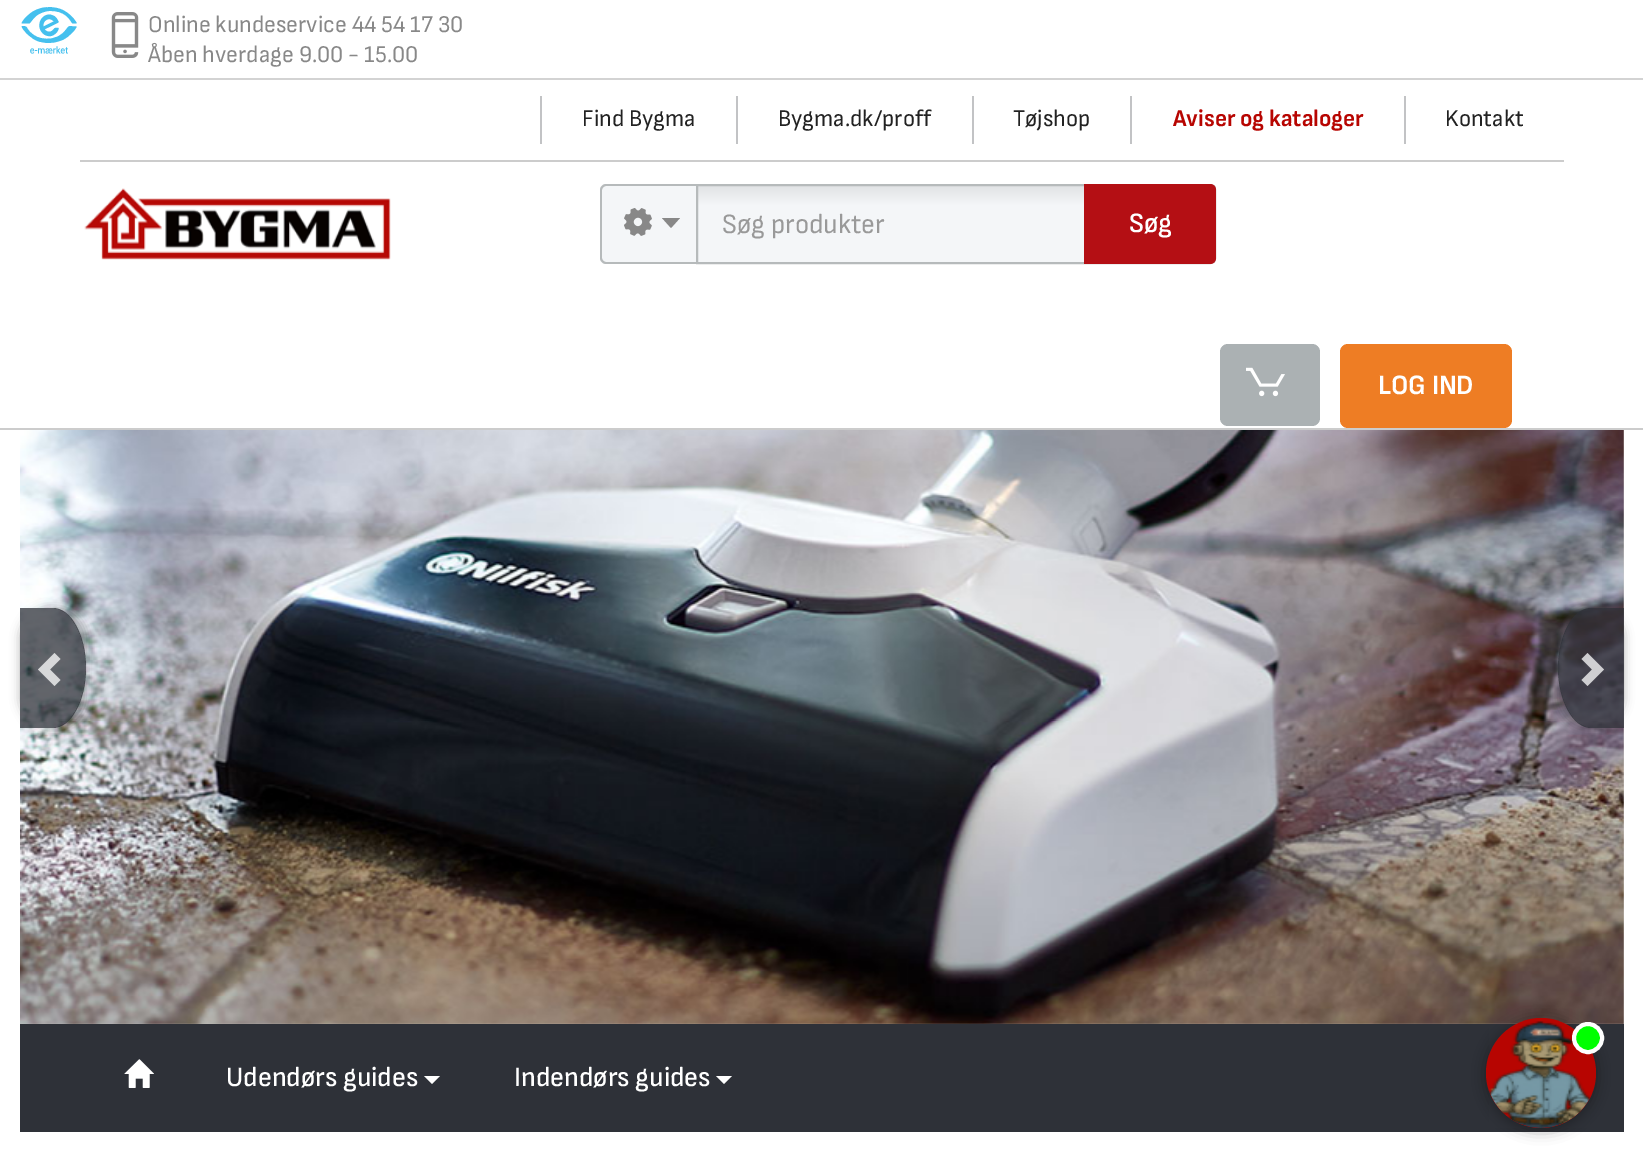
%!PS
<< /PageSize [1643 1168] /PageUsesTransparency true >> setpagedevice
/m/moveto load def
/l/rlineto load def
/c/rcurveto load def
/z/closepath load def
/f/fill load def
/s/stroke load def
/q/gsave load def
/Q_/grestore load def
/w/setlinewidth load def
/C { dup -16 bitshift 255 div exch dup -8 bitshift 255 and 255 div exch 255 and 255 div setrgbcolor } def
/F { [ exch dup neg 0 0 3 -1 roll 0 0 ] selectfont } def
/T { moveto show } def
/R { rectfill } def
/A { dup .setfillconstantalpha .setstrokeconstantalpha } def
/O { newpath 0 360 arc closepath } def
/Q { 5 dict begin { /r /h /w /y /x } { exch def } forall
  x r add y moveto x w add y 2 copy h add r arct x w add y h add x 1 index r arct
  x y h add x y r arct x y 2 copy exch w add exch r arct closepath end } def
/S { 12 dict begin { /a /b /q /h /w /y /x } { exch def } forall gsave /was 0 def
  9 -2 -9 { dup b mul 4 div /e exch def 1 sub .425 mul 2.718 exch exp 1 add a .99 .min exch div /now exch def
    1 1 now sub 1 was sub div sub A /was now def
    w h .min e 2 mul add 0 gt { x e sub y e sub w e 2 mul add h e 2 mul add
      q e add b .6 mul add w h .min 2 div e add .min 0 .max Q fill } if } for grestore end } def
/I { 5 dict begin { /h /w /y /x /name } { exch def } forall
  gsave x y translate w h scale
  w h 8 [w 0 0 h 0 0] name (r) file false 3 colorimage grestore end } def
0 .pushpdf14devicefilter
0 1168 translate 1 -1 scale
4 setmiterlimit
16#FFFFFF C
0 0 1643 1168 R
16#CCCCCC C
0 428 1643 2 R
16#D3D3D3 C
0 78 1643 2 R
/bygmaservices-Regular 72 F
16#45C0EE C
(M) 20 58 T
(1.rgb) 111 12 28 46 I
/SofiaSansSemiCondensed-Regular 24 F
16#888888 C
(Online kundeservice 44 54 17 30) 148 32 T
(Åben hverdage 9.00 - 15.00) 148 62 T
16#CCCCCC C
80 160 1484 2 R
16#C2C3C5 C
540 96 2 48 R
16#222222 C
(Find Bygma) 582 126 T
16#C2C3C5 C
736 96 2 48 R
16#222222 C
(Bygma.dk/proff) 778 126 T
16#C2C3C5 C
972 96 2 48 R
16#222222 C
(Tøjshop) 1013 126 T
16#C2C3C5 C
1130 96 2 48 R
/SofiaSansSemiCondensed-Bold 24 F
16#B70501 C
(Aviser og kataloger) 1173 126 T
16#C2C3C5 C
1404 96 2 48 R
/SofiaSansSemiCondensed-Regular 24 F
16#222222 C
(Kontakt) 1445 126 T
(2.rgb) 84 188 307 72 I
16#F4F6F8 C
606 184 m 90 0 l 0 80 l -90 0 l -3.5 0 -6 -2.5 -6 -6 c 0 -68 l 0 -3.5 2.5 -6 6 -6 c z f
16#B6BABB C
606 184 m 90 0 l 0 80 l -90 0 l -3 0 -6 -3 -6 -6 c 0 -68 l 0 -3 3 -6 6 -6 c z 606 186 m 90 0 l 0 76 l -90 0 l -2 0 -4 -2 -4 -4 c 0 -68 l 0 -2 2 -4 4 -4 c z eofill
(3.rgb) 624 208 28 28 I
16#888888 C
662 218 m 18 0 l -9 10 l z f
q
696 184 m 514 0 l 3.5 0 6 2.5 6 6 c 0 68 l 0 3.5 -2.5 6 -6 6 c -514 0 l z clip newpath
q 698 186 m 518 0 l 0 76 l -518 0 l z clip newpath
<< /ShadingType 2 /ColorSpace /DeviceRGB /Coords [956 186 956 262] /Extend [true true] /Function << /FunctionType 3 /Domain [0 1] /Functions [<< /FunctionType 2 /Domain [0 1] /C0 [.882 .89 .898] /C1 [.957 .965 .973] /N 1 >> << /FunctionType 2 /Domain [0 1] /C0 [.957 .965 .973] /C1 [.957 .965 .973] /N 1 >>] /Bounds [.25] /Encode [0 1 0 1] >> >> shfill Q_
Q_
16#B6BABB C
2 w
697 185 m 513 0 l 3 0 5 2 5 5 c 0 68 l 0 3 -2 5 -5 5 c -513 0 l z s
/SofiaSansSemiCondensed-Regular 28 F
16#999999 C
(Søg produkter) 722 233 T
16#B40F14 C
1084 184 m 126 0 l 3.5 0 6 2.5 6 6 c 0 68 l 0 3.5 -2.5 6 -6 6 c -126 0 l z f
/SofiaSansSemiCondensed-SemiBold 28 F
16#FFFFFF C
(Søg) 1129 232 T
16#ABB1B3 C
1220 344 100 82 8 Q f
(4.rgb) 1246 367 39 30 I
16#EE7D24 C
1340 344 172 84 8 Q f
/SofiaSansSemiCondensed-Bold 28 F
16#FFFFFF C
(LOG IND) 1378 394 T
16#D0CDC8 C
20 430 1604 594 R
(5.rgb) 20 430 1604 594 I
q
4 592 m 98 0 l 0 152 l -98 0 l z 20 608 m 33 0 l 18 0 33 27 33 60 c 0 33 -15 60 -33 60 c -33 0 l z eoclip newpath
16#333333 C
20 608 66 120 33 5 .38 S
Q_
0.75 A
16#2E3138 C
20 608 m 33 0 l 18 0 33 27 33 60 c 0 33 -15 60 -33 60 c -33 0 l z f
16#FFFFFF C
60.5 659 m -10.5 10.5 l 10.5 10.5 l -6 6 l -16.5 -16.5 l 16.5 -16.5 l z f
q
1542 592 m 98 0 l 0 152 l -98 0 l z 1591 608 m 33 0 l 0 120 l -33 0 l -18 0 -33 -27 -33 -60 c 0 -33 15 -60 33 -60 c z eoclip newpath
1 A
16#333333 C
1558 608 66 120 33 5 .38 S
Q_
16#2E3138 C
1591 608 m 33 0 l 0 120 l -33 0 l -18 0 -33 -27 -33 -60 c 0 -33 15 -60 33 -60 c z f
16#FFFFFF C
1604 669.5 m -16.5 16.5 l -6 -6 l 10.5 -10.5 l -10.5 -10.5 l 6 -6 l z f
1 A
16#2E3138 C
20 1024 1604 108 R
(6.rgb) 124 1059 30 29 I
/SofiaSansSemiCondensed-Medium 28 F
16#FFFFFF C
(Udendørs guides) 226 1086 T
424 1076 m 16 0 l -8 8 l z f
(Indendørs guides) 514 1086 T
716 1076 m 16 0 l -8 8 l z f
16#000000 C
1486 1020 110 110 55 7 .35 S
16#B70501 C
1541 1073 55 O f
(7.rgb) 1489 1021 101 107 I
16#00FF00 C
1588 1038 14 O q f Q_
16#FFFFFF C
4 w
s
.poppdf14devicefilter showpage
